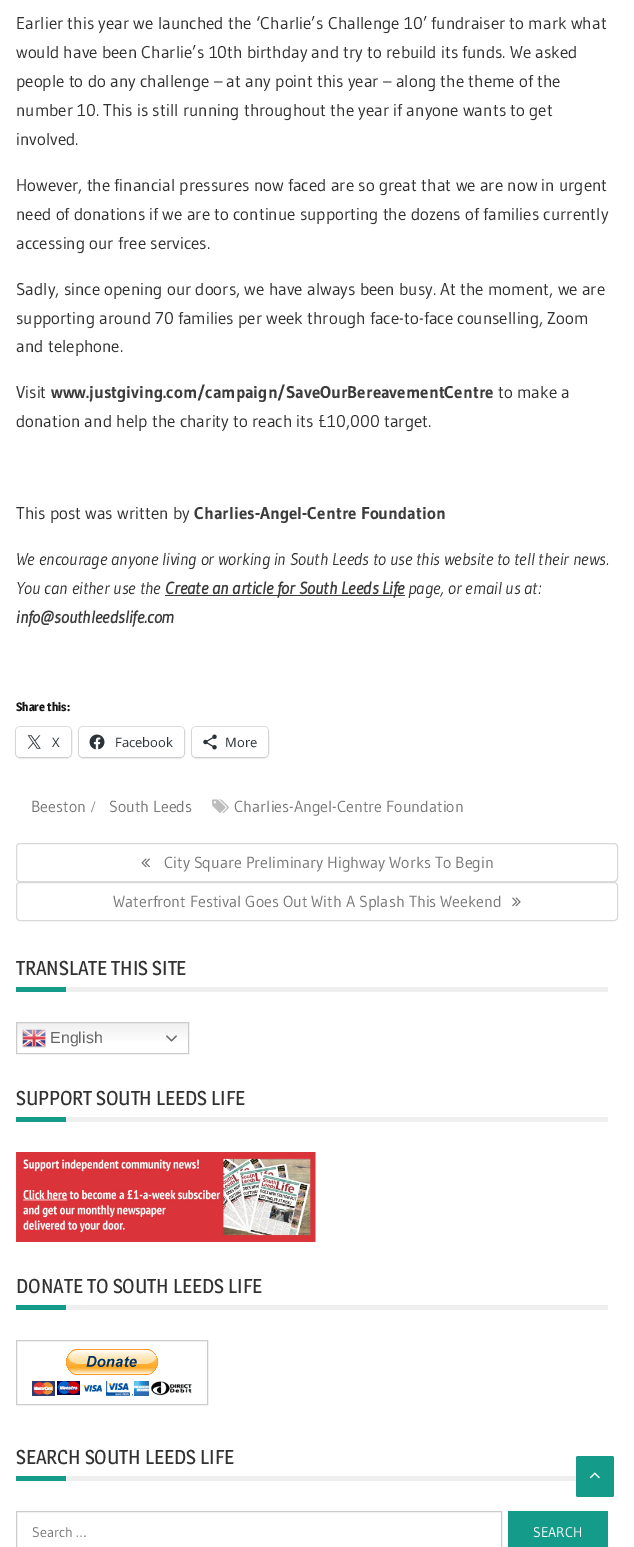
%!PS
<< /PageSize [634 1547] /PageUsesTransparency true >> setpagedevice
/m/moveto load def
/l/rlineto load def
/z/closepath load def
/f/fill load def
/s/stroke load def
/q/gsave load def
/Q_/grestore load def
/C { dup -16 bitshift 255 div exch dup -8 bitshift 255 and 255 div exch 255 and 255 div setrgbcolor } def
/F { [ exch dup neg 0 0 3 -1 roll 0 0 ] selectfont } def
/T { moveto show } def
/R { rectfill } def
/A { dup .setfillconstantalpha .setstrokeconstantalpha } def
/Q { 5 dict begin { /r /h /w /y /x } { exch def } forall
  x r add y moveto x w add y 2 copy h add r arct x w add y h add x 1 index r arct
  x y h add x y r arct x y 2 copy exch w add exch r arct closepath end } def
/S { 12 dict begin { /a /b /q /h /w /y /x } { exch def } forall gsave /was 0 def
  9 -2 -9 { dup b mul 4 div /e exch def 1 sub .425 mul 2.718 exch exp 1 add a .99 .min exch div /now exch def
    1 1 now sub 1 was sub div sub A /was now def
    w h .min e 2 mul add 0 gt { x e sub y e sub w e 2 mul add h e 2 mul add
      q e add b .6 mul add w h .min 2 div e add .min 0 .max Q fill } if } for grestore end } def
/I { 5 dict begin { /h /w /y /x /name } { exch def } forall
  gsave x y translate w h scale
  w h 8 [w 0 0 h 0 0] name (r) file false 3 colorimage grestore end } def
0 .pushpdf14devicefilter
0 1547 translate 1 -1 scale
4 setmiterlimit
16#FFFFFF C
0 0 634 1547 R
/Gudea-Regular 17 F
16#313131 C
(Earlier this year we launched the ‘Charlie’s Challenge 10’ fundraiser to mark what) 16 29 T
(would have been Charlie’s 10th birthday and try to rebuild its funds. We asked) 16 58 T
(people to do any challenge – at any point this year – along the theme of the) 16 87 T
(number 10. This is still running throughout the year if anyone wants to get) 16 116 T
(involved.) 16 145 T
(However, the financial pressures now faced are so great that we are now in urgent) 16 191 T
(need of donations if we are to continue supporting the dozens of families currently) 16 220 T
(accessing our free services.) 16 249 T
(Sadly, since opening our doors, we have always been busy. At the moment, we are) 16 295 T
(supporting around 70 families per week through face-to-face counselling, Zoom) 16 324 T
(and telephone.) 16 352 T
(Visit) 16 398 T
/Gudea-Bold 17 F
16#3C3C3C C
(www.justgiving.com/campaign/SaveOurBereavementCentre) 51 398 T
/Gudea-Regular 17 F
16#313131 C
(to make a) 498 398 T
(donation and help the charity to reach its £10,000 target.) 16 427 T
(This post was written by) 16 519 T
/Gudea-Bold 17 F
16#3C3C3C C
(Charlies-Angel-Centre Foundation) 194 519 T
/Gudea-Italic 17 F
16#313131 C
(We encourage anyone living or working in South Leeds to use this website to tell their news.) 16 565 T
(You can either use the) 16 594 T
16#3C3C3C C
165 595 240 1 R
/Gudea-BoldItalic 17 F
(Create an article for South Leeds Life) 165 594 T
/Gudea-Italic 17 F
16#313131 C
(page, or email us at:) 408 594 T
/Gudea-BoldItalic 17 F
16#3C3C3C C
(info@southleedslife.com) 16 623 T
/Magra-Bold 12 F
16#151515 C
(Share this:) 16 711 T
16#E0E0E0 C
15.5 726.5 56 31 4.5 Q s
16#000000 C
16 728 55 30 4 1 .12 S
16#FFFFFF C
16 727 55 30 4 Q f
(1.rgb) 27 735 14 14 I
/OpenSans-Regular 13 F
16#2C3338 C
(X) 52 747 T
16#E0E0E0 C
78.5 726.5 106 31 4.5 Q s
16#000000 C
79 728 105 30 4 1 .12 S
16#FFFFFF C
79 727 105 30 4 Q f
(2.rgb) 89 734 16 16 I
16#2C3338 C
(Facebook) 115 747 T
16#E0E0E0 C
191.5 726.5 77 31 4.5 Q s
16#000000 C
192 728 76 30 4 1 .12 S
16#FFFFFF C
192 727 76 30 4 Q f
(3.rgb) 203 734 14 16 I
16#2C3338 C
(More) 225 747 T
/Gudea-Regular 16 F
16#787878 C
(Beeston) 31 812 T
/LiberationSerif-Regular 16 F
(/) 91 812 T
/Gudea-Regular 16 F
(South Leeds) 109 812 T
(4.rgb) 212 799 17 14 I
(Charlies-Angel-Centre Foundation) 234 812 T
16#D9D9D9 C
16.5 843.5 601 38 3.5 Q s
(5.rgb) 141 858 9 10 I
16#787878 C
(City Square Preliminary Highway Works To Begin) 164 868 T
16#D9D9D9 C
16.5 882.5 601 38 3.5 Q s
16#787878 C
(Waterfront Festival Goes Out With A Splash This Weekend) 113 907 T
(6.rgb) 512 897 9 10 I
16#EFEFEF C
66 987 542 5 R
/Magra-Regular 20 F
16#313131 C
(TRANSLATE THIS SITE) 16 975 T
16#159B89 C
16 987 50 5 R
q 17 1023 m 171 0 l 0 18 l -171 0 l z clip newpath
<< /ShadingType 2 /ColorSpace /DeviceRGB /Coords [103 1022 103 1054] /Extend [true true] /Function << /FunctionType 3 /Domain [0 1] /Functions [<< /FunctionType 2 /Domain [0 1] /C0 [.937 .937 .937] /C1 [1 1 1] /N 1 >> << /FunctionType 2 /Domain [0 1] /C0 [1 1 1] /C1 [1 1 1] /N 1 >>] /Bounds [.7] /Encode [0 1 0 1] >> >> shfill Q_
16#CCCCCC C
16.5 1022.5 172 31 rectstroke
(7.rgb) 22 1029 24 19 I
/LiberationSans-Regular 16 F
16#666666 C
(English) 50 1043 T
(8.rgb) 166 1035 11 7 I
16#EFEFEF C
66 1117 542 5 R
/Magra-Regular 20 F
16#313131 C
(SUPPORT SOUTH LEEDS LIFE) 16 1105 T
16#159B89 C
16 1117 50 5 R
(9.rgb) 16 1152 300 90 I
16#EFEFEF C
66 1305 542 5 R
16#313131 C
(DONATE TO SOUTH LEEDS LIFE) 16 1293 T
16#159B89 C
16 1305 50 5 R
16#CCCCCC C
16.5 1340.5 191 64 rectstroke
(10.rgb) 32 1349 160 47 I
16#EFEFEF C
66 1476 510 5 R
16#313131 C
(SEARCH SOUTH LEEDS LIFE) 16 1464 T
16#159B89 C
16 1476 50 5 R
16#CCCCCC C
16.5 1511.5 485 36 rectstroke
/Gudea-Regular 14 F
16#787878 C
(Search …) 32 1537 T
16#159B89 C
508 1511 100 36 R
16#FFFFFF C
(SEARCH) 533 1537 T
16#159B89 C
576 1456 38 41 2 Q f
(11.rgb) 589 1472 11 7 I
.poppdf14devicefilter showpage
